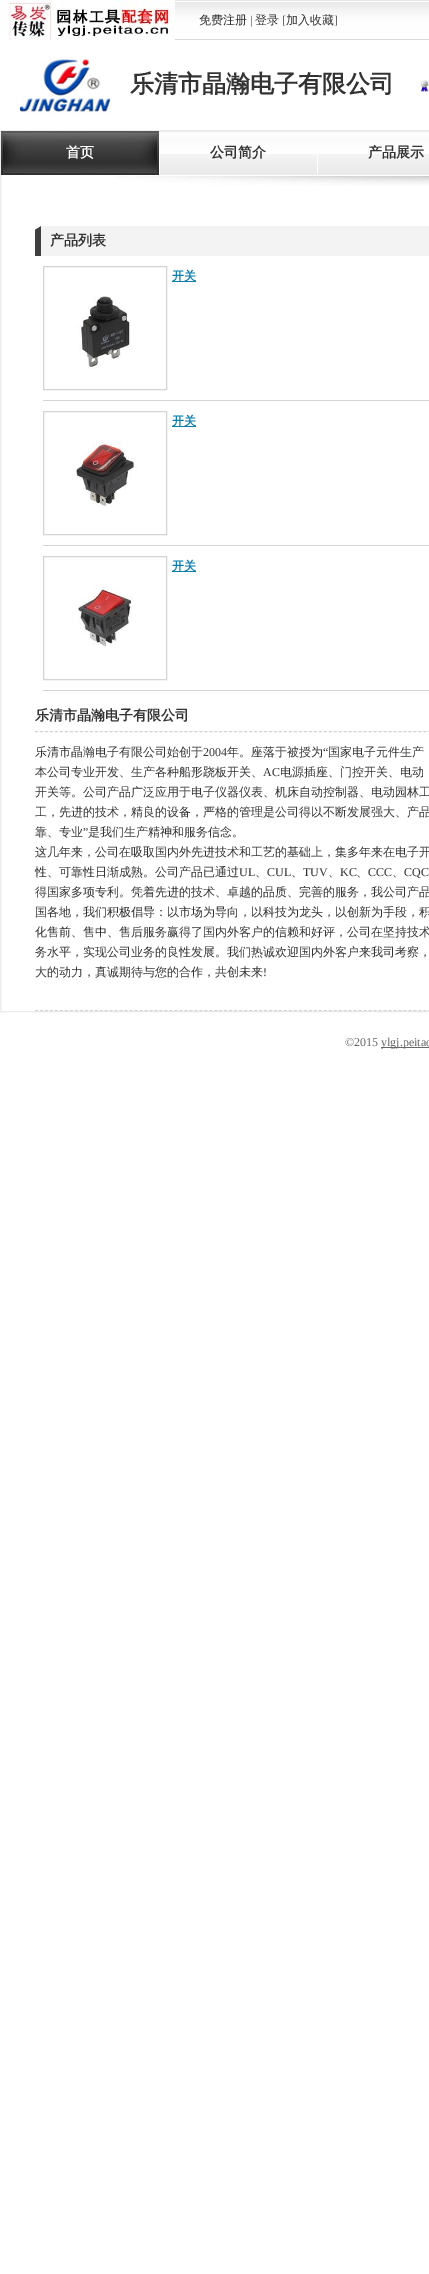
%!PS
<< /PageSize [429 2274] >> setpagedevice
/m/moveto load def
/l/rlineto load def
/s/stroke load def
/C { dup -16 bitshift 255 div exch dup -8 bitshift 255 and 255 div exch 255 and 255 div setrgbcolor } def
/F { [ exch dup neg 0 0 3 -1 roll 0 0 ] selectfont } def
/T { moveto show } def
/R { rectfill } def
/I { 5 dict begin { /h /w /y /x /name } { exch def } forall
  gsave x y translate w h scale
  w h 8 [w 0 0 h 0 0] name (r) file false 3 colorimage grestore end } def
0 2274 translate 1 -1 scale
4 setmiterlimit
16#FFFFFF C
0 0 429 2274 R
(1.rgb) 175 0 254 40 I
(2.rgb) 0 0 175 40 I
/WenQuanYiZenHei-Medium 12 F
16#333333 C
(免费注册) 199 24 T
/LiberationSerif-Regular 12 F
(|) 250 24 T
/WenQuanYiZenHei-Medium 12 F
(登录) 255 24 T
/LiberationSerif-Regular 12 F
([) 282 24 T
/WenQuanYiZenHei-Medium 12 F
(加入收藏) 286 24 T
/LiberationSerif-Regular 12 F
(]) 334 24 T
(3.rgb) 20 56 90 59 I
/WenQuanYiZenHei-Bold 24 F
(乐清市晶瀚电子有限公司) 130 92 T
(4.rgb) 420 80 9 12 I
16#ECECEC C
.5 130.5 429 881 rectstroke
(5.rgb) 159 131 270 44 I
(6.rgb) 1 131 158 44 I
/WenQuanYiZenHei-Bold 14 F
16#FFFFFF C
(首页) 66 157 T
(7.rgb) 159 154 1 21 I
16#333333 C
(公司简介) 210 157 T
(7.rgb) 317 154 1 21 I
(产品展示) 368 157 T
(8.rgb) 115 176 314 10 I
(9.rgb) 35 226 394 30 I
(产品列表) 50 245 T
16#D4D4D4 C
43 400 386 1 R
43.5 266.5 123 123 rectstroke
(10.rgb) 78 296 53 73 I
16#0B7DAD C
172 281 24 1 R
/WenQuanYiZenHei-Bold 12 F
(开关) 172 280 T
16#D4D4D4 C
43 545 386 1 R
43.5 411.5 123 123 rectstroke
(11.rgb) 73 441 64 68 I
16#0B7DAD C
172 426 24 1 R
(开关) 172 425 T
16#D4D4D4 C
43 690 386 1 R
43.5 556.5 123 123 rectstroke
(12.rgb) 78 586 54 64 I
16#0B7DAD C
172 571 24 1 R
(开关) 172 570 T
16#D3D3D3 C
[3 1.98] 0 setdash
35 1010.5 m 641 0 l s
35 731.5 m 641 0 l s
/WenQuanYiZenHei-Bold 14 F
16#333333 C
(乐清市晶瀚电子有限公司) 35 720 T
/WenQuanYiZenHei-Medium 12 F
(乐清市晶瀚电子有限公司始创于) 35 756 T
/LiberationSerif-Regular 12 F
(2004) 203 756 T
/WenQuanYiZenHei-Medium 12 F
(年。座落于被授为) 227 756 T
/LiberationSerif-Regular 12 F
(“) 323 756 T
/WenQuanYiZenHei-Medium 12 F
(国家电子元件生产) 328 756 T
(本公司专业开发、生产各种船形跷板开关、) 35 776 T
/LiberationSerif-Regular 12 F
(AC) 263 776 T
/WenQuanYiZenHei-Medium 12 F
(电源插座、门控开关、电动) 280 776 T
(开关等。公司产品广泛应用于电子仪器仪表、机床自动控制器、电动园林工) 35 796 T
(工，先进的技术，精良的设备，严格的管理是公司得以不断发展强大、产品) 35 816 T
(靠、专业) 35 836 T
/LiberationSerif-Regular 12 F
(”) 83 836 T
/WenQuanYiZenHei-Medium 12 F
(是我们生产精神和服务信念。) 88 836 T
(这几年来，公司在吸取国内外先进技术和工艺的基础上，集多年来在电子开) 35 856 T
(性、可靠性日渐成熟。公司产品已通过) 35 876 T
/LiberationSerif-Regular 12 F
(UL) 239 876 T
/WenQuanYiZenHei-Medium 12 F
(、) 255 876 T
/LiberationSerif-Regular 12 F
(CUL) 267 876 T
/WenQuanYiZenHei-Medium 12 F
(、) 291 876 T
/LiberationSerif-Regular 12 F
(TUV) 303 876 T
/WenQuanYiZenHei-Medium 12 F
(、) 328 876 T
/LiberationSerif-Regular 12 F
(KC) 340 876 T
/WenQuanYiZenHei-Medium 12 F
(、) 356 876 T
/LiberationSerif-Regular 12 F
(CCC) 368 876 T
/WenQuanYiZenHei-Medium 12 F
(、) 392 876 T
/LiberationSerif-Regular 12 F
(CQC) 404 876 T
/WenQuanYiZenHei-Medium 12 F
(得国家多项专利。凭着先进的技术、卓越的品质、完善的服务，我公司产品) 35 896 T
(国各地，我们积极倡导：以市场为导向，以科技为龙头，以创新为手段，积) 35 916 T
(化售前、售中、售后服务赢得了国内外客户的信赖和好评，公司在坚持技术) 35 936 T
(务水平，实现公司业务的良性发展。我们热诚欢迎国内外客户来我司考察，) 35 956 T
(大的动力，真诚期待与您的合作，共创未来) 35 976 T
/LiberationSerif-Regular 12 F
(!) 263 976 T
16#666666 C
(©2015) 345 1046 T
381 1047 48 1 R
(ylgj.peitao) 381 1046 T
showpage
